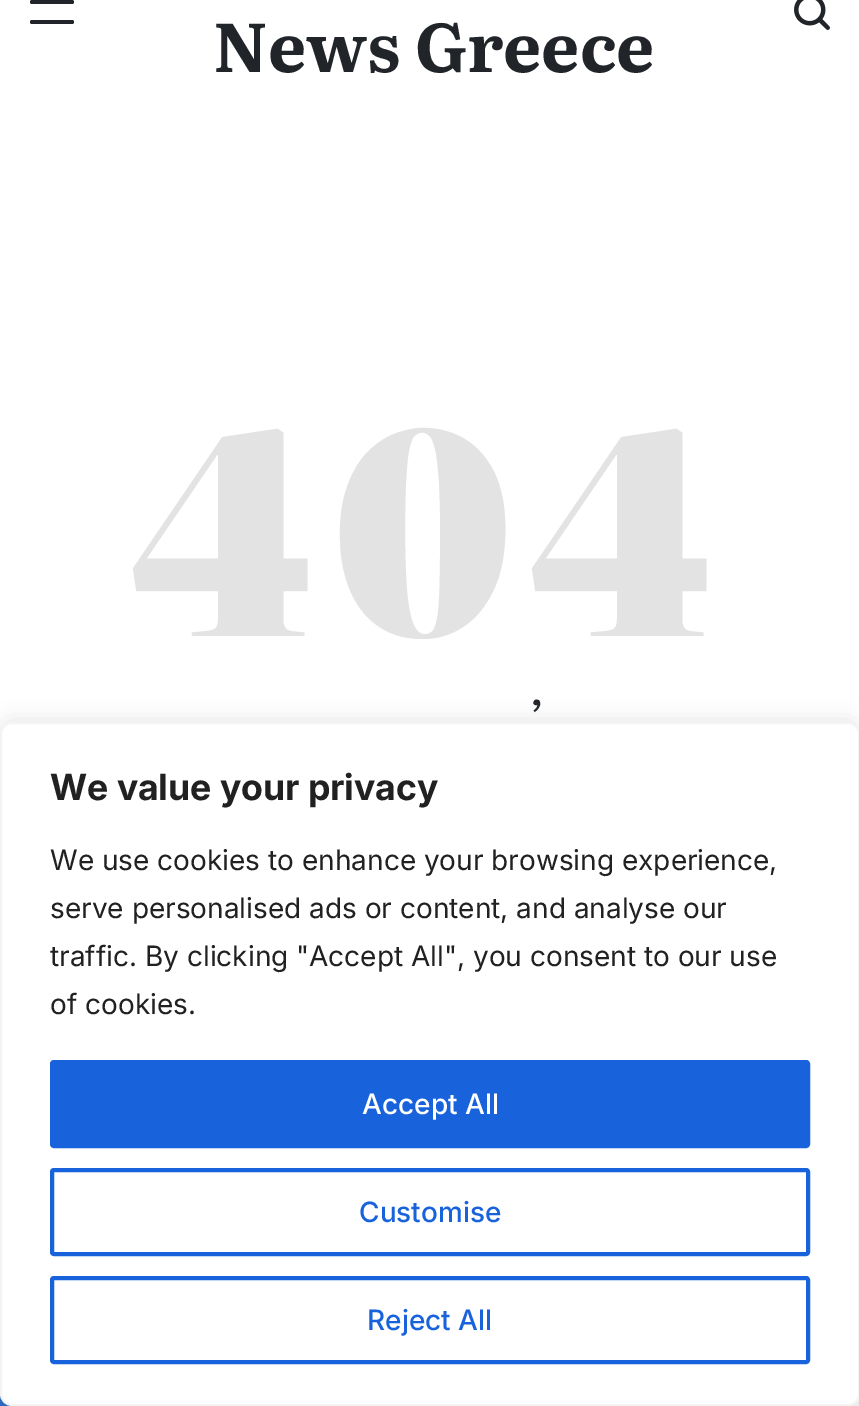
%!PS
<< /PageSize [859 1406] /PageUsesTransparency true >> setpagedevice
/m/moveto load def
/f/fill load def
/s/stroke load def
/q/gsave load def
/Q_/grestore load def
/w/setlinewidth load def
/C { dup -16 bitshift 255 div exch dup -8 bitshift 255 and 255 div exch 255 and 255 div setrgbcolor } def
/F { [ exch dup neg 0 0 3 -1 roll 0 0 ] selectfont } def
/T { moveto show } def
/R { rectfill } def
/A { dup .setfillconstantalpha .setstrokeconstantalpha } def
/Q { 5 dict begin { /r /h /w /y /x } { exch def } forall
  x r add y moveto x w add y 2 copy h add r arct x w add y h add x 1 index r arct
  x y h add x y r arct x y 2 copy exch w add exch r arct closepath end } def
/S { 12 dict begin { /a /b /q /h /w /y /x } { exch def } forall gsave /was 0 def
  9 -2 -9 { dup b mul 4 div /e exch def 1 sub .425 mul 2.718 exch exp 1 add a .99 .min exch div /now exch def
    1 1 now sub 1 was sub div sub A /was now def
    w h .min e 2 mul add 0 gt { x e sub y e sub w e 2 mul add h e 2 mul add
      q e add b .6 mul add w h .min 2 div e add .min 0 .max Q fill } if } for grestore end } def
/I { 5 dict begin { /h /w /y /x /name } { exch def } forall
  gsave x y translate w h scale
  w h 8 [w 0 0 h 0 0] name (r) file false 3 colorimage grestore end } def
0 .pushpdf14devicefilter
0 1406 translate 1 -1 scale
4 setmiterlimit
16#FFFFFF C
0 0 859 1406 R
16#212529 C
30 0 44 4 2 Q f
30 20 44 4 2 Q f
(1.rgb) 794 0 36 30 I
/Literata-Bold 68 F
(News Greece) 213 72 T
/Literata-Black 280 F
16#E3E3E3 C
130 636 m 14 0 (404) ashow
/Literata-Regular 48 F
16#212529 C
529 736 m -1 0 32 (’) widthshow
16#F3F3F3 C
848 1398 11 8 R
16#2260BF C
0 1396 12 10 R
16#ACABAB C
0 720 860 684 12 10 .3 S
16#FFFFFF C
1 723 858 682 11 Q q f Q_
16#F4F4F4 C
2 w
s
/Inter-Bold 36 F
16#212121 C
(We value your privacy) 50 800 T
/Inter-Regular 28 F
(We use cookies to enhance your browsing experience,) 50 870 T
(serve personalised ads or content, and analyse our) 50 918 T
(traffic. By clicking "Accept All", you consent to our use) 50 966 T
(of cookies.) 50 1014 T
16#1863DC C
52 1062 756 84 2 Q q f Q_
4 w
s
/Inter-Medium 28 F
16#FFFFFF C
(Accept All) 362 1114 T
16#1863DC C
52 1170 756 84 2 Q s
(Customise) 359 1222 T
52 1278 756 84 2 Q s
(Reject All) 367 1330 T
.poppdf14devicefilter showpage
